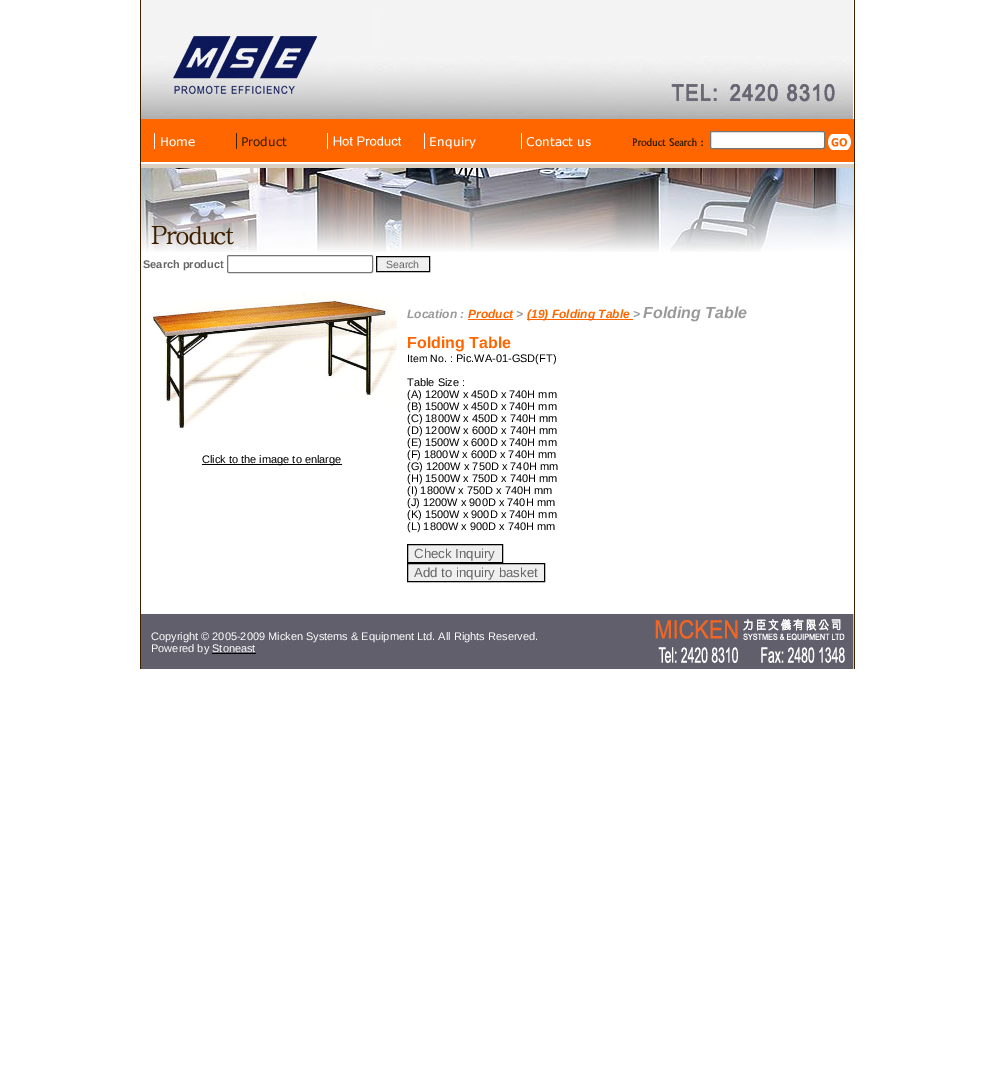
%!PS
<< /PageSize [995 1075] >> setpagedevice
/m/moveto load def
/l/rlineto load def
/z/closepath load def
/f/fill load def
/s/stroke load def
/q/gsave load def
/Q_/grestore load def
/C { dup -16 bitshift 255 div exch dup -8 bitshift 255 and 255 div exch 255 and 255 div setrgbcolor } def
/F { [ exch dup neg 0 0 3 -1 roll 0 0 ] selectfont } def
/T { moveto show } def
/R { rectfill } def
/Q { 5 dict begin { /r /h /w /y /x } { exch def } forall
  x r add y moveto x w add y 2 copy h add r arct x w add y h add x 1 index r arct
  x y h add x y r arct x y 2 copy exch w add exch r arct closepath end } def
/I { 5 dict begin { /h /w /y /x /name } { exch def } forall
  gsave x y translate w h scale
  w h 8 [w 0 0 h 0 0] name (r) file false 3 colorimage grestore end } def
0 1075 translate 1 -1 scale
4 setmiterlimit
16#FFFFFF C
0 0 995 1075 R
16#3D2000 C
854 0 1 669 R
140 0 1 669 R
(1.rgb) 141 0 712 119 I
16#FF6600 C
141 119 713 43 R
(2.rgb) 154 133 41 16 I
(3.rgb) 236 133 51 16 I
(4.rgb) 321 127 82 24 I
(5.rgb) 424 133 52 16 I
(6.rgb) 521 133 70 16 I
(7.rgb) 632 138 71 9 I
16#FFFFFF C
710.5 131.5 114 17 1.5 Q q f Q_
16#767676 C
s
(8.rgb) 828 134 23 16 I
16#D8D0C3 C
141 164 713 4 R
(9.rgb) 141 168 713 84 I
/LiberationSans-Bold 11 F
16#666666 C
(Search product) 143 268 T
16#767676 C
227.5 255.5 145 17 1.5 Q s
16#EFEFEF C
376.5 256.5 m 53 0 l 0 15 l -53 0 l z q f Q_
16#000000 C
s
/LiberationSans-Regular 10.5 F
16#666666 C
(Search) 386 268 T
(10.rgb) 152 293 245 136 I
16#000000 C
202 464 140 1 R
/LiberationSans-Regular 11 F
(Click to the image to enlarge) 202 463 T
/LiberationSans-BoldItalic 12 F
16#999999 C
(Location :) 407 318 T
16#FF6600 C
(Product) 468 318 T
468 319 45 1 R
16#999999 C
(>) 516 318 T
16#FF6600 C
527 319 106 1 R
(\(19\) Folding Table) 527 318 T
16#999999 C
(>) 633 318 T
/LiberationSans-BoldItalic 16 F
(Folding Table) 643 318 T
/LiberationSans-Bold 16 F
16#FF6600 C
(Folding Table) 407 348 T
/LiberationSans-Regular 10.5 F
16#000000 C
(Item No. :) 407 362 T
/LiberationSans-Regular 11 F
(Pic.WA-01-GSD\(FT\)) 456 362 T
(Table Size :) 407 386 T
(\(A\) 1200W x 450D x 740H mm) 407 398 T
(\(B\) 1500W x 450D x 740H mm) 407 410 T
(\(C\) 1800W x 450D x 740H mm) 407 422 T
(\(D\) 1200W x 600D x 740H mm) 407 434 T
(\(E\) 1500W x 600D x 740H mm) 407 446 T
(\(F\) 1800W x 600D x 740H mm) 407 458 T
(\(G\) 1200W x 750D x 740H mm) 407 470 T
(\(H\) 1500W x 750D x 740H mm) 407 482 T
(\(I\) 1800W x 750D x 740H mm) 407 494 T
(\(J\) 1200W x 900D x 740H mm) 407 506 T
(\(K\) 1500W x 900D x 740H mm) 407 518 T
(\(L\) 1800W x 900D x 740H mm) 407 530 T
16#EFEFEF C
407.5 544.5 m 95 0 l 0 18 l -95 0 l z q f Q_
16#000000 C
s
/LiberationSans-Regular 13.25 F
16#666666 C
(Check Inquiry) 414 558 T
16#EFEFEF C
407.5 563.5 m 137 0 l 0 18 l -137 0 l z q f Q_
16#000000 C
s
16#666666 C
(Add to inquiry basket) 414 577 T
16#615F6C C
141 614 512 55 R
/LiberationSans-Regular 11 F
16#FFFFFF C
(Copyright © 2005-2009 Micken Systems & Equipment Ltd. All Rights Reserved.) 151 640 T
(Powered by Stoneast) 151 652 T
16#000000 C
212 653 44 1 R
16#C6C6C6 C
853 614 1 55 R
(11.rgb) 653 614 200 55 I
showpage
